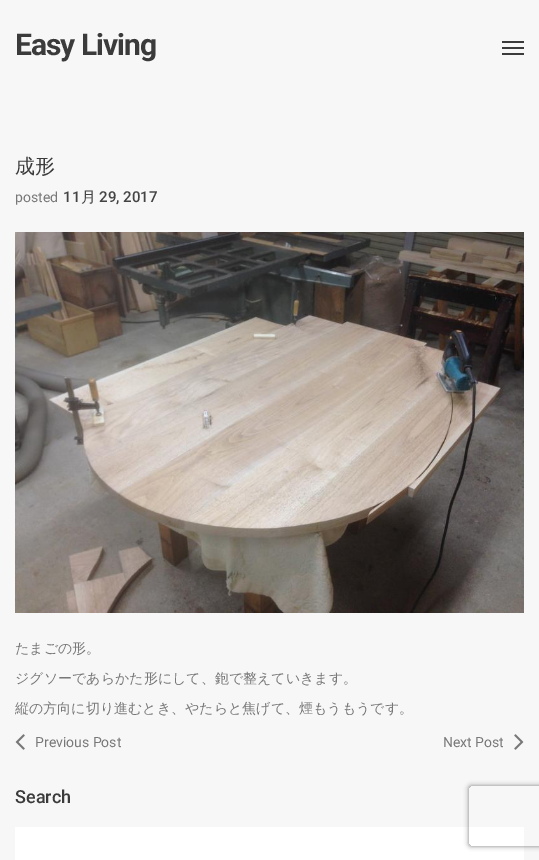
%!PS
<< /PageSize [539 860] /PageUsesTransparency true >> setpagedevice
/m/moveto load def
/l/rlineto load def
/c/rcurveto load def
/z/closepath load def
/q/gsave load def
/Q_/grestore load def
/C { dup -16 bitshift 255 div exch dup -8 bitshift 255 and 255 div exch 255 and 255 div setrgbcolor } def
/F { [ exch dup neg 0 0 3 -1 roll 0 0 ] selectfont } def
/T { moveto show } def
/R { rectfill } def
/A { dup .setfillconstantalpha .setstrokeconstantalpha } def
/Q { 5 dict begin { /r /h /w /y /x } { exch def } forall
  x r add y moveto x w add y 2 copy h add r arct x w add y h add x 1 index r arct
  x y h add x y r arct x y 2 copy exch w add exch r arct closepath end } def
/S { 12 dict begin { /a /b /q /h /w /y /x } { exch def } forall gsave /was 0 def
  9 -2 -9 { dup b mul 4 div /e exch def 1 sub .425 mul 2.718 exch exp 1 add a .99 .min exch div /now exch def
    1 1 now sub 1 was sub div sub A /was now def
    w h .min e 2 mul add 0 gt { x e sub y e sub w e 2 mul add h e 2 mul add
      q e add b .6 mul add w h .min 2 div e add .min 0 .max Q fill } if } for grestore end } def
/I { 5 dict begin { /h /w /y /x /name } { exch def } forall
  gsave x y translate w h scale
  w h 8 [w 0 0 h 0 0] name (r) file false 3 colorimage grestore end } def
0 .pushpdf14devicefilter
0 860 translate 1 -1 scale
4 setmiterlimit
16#F7F7F7 C
0 0 539 860 R
/Roboto-Bold 30 F
16#3B3B3B C
15 55 m -1 0 (Easy Living) ashow
502 47 22 2 R
502 41 22 2 R
502 53 22 2 R
/WenQuanYiZenHei-Medium 20 F
(成形) 15 173 T
/Roboto-Regular 14 F
16#787878 C
(posted) 15 202 T
/Roboto-Medium 15 F
16#444444 C
(11) 63 202 T
/WenQuanYiZenHei-Medium 15 F
(月) 81 202 T
/Roboto-Medium 15 F
(29, 2017) 99 202 T
(1.rgb) 15 232 509 381 I
/WenQuanYiZenHei-Medium 14 F
16#787878 C
(たまごの形。) 15 653 T
(ジグソーであらかた形にして、鉋で整えていきます。) 15 683 T
(縦の方向に切り進むとき、やたらと焦げて、煙もうもうです。) 15 713 T
(2.rgb) 15 734 10 16 I
/Roboto-Regular 14 F
(Previous Post) 35 747 T
(Next Post) 443 747 T
(3.rgb) 514 734 10 16 I
/Roboto-Medium 18 F
16#3B3B3B C
(Search) 15 803 T
16#FFFFFF C
15 827 509 33 R
q
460 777 m 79 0 l 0 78 l -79 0 l z 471 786 m 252 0 l 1 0 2 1 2 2 c 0 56 l 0 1 -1 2 -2 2 c -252 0 l -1 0 -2 -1 -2 -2 c 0 -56 l 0 -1 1 -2 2 -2 c z eoclip newpath
16#808080 C
469 786 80 60 2 2.5 1 S
Q_
.poppdf14devicefilter showpage
